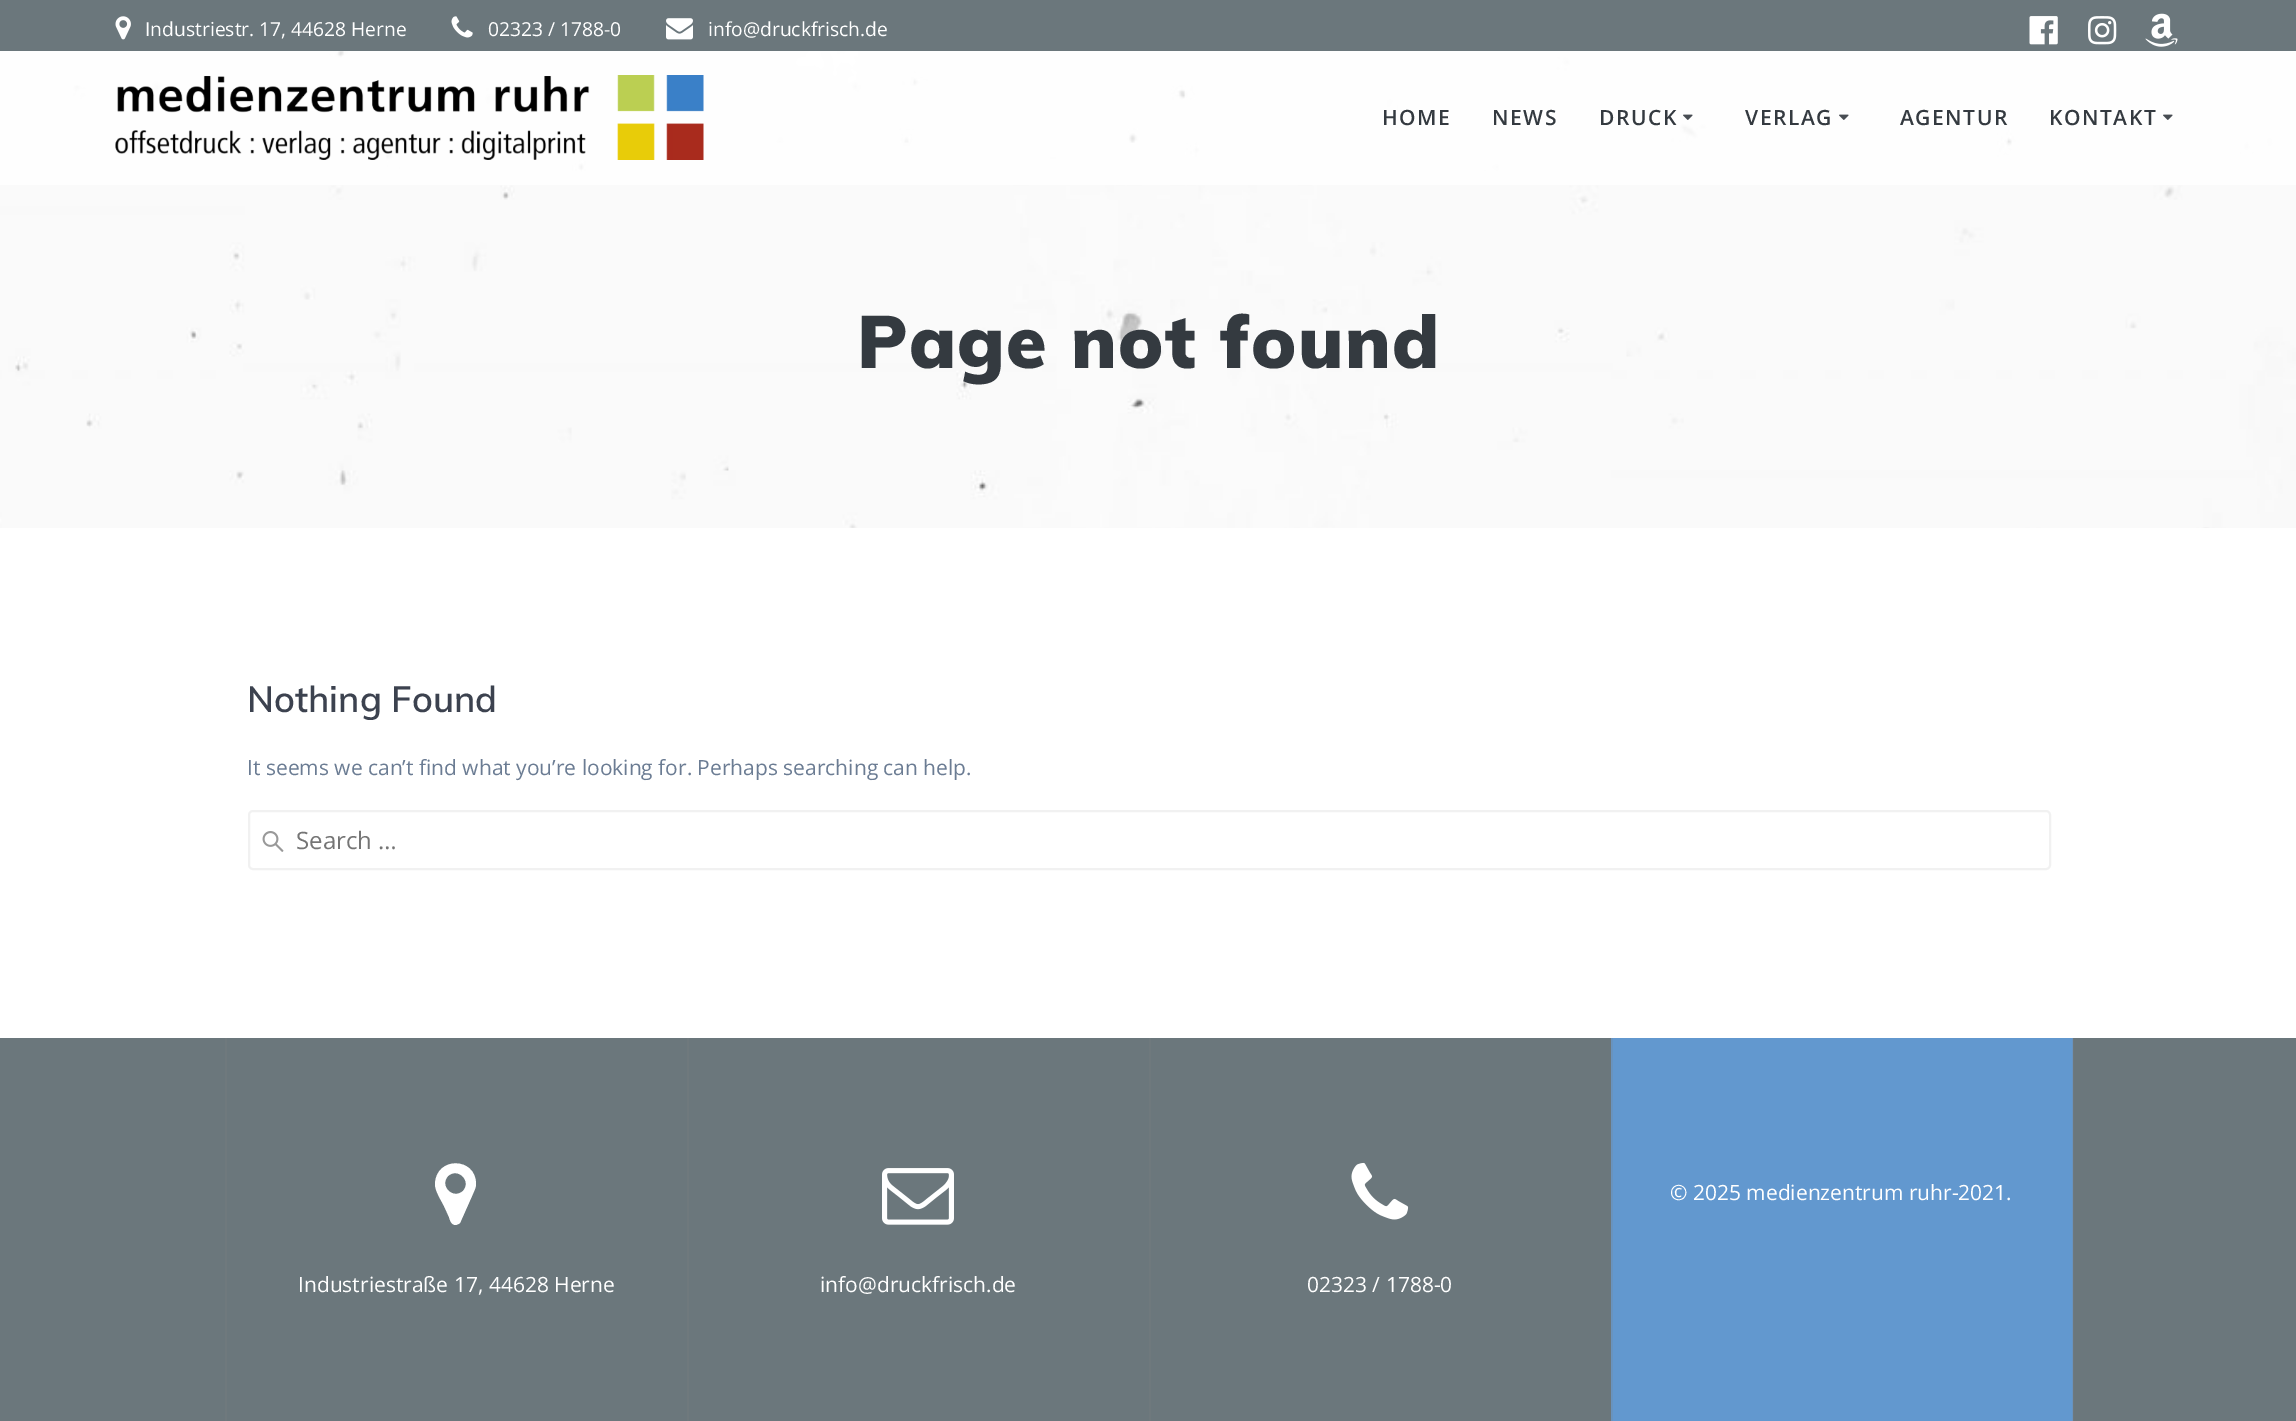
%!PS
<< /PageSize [2296 1421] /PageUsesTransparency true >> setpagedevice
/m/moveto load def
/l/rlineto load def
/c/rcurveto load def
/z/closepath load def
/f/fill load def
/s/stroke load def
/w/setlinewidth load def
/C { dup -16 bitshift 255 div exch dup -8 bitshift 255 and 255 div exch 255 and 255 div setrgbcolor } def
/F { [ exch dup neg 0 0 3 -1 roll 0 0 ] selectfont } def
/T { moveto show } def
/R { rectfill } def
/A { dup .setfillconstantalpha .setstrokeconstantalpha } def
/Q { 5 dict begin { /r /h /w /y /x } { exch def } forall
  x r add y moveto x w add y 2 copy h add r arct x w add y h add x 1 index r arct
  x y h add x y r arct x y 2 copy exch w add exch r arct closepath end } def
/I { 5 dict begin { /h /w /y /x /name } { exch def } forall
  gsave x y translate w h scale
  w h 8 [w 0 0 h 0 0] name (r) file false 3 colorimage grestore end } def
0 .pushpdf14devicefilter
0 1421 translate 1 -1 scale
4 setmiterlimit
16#FFFFFF C
0 0 2296 1421 R
16#6B777C C
0 0 2296 51 R
(1.rgb) 115 16 16 24 I
/OpenSans-Regular 19.25 F
16#FFFFFF C
(Industriestr. 17, 44628 Herne) 145 36 T
(2.rgb) 451 16 22 22 I
(02323 / 1788-0) 488 36 T
(3.rgb) 666 18 27 22 I
(info@druckfrisch.de) 708 36 T
(4.rgb) 2029 16 29 29 I
(5.rgb) 2088 16 29 29 I
(6.rgb) 2145 13 33 34 I
(10.rgb) 0 51 2296 477 I
0.8 A
0 51 2296 134 R
1 A
(7.rgb) 115 75 589 85 I
/OpenSans-SemiBold 21 F
16#343A40 C
1382 125 m 1.5 0 (HOME) ashow
1492 125 m 1.5 0 (NEWS) ashow
1599 125 m 1.5 0 (DRUCK) ashow
(8.rgb) 1683 114 10 6 I
1745 125 m 1.5 0 (VERLAG) ashow
(9.rgb) 1839 114 10 6 I
1900 125 m 1.5 0 (AGENTUR) ashow
2049 125 m 1.5 0 (KONTAKT) ashow
(9.rgb) 2163 114 10 6 I
/Muli-Black 73.5 F
857 368 m 1.4 0 (Page not found) ashow
/Muli-SemiBold 36 F
16#3C424F C
(Nothing Found) 247 712 T
/OpenSans-Regular 21 F
16#6B7C93 C
(It seems we can’t find what you’re looking for. Perhaps searching can help.) 247 775 T
(11.rgb) 262 831 22 21 I
16#F1F1F1 C
2 w
249 811 1801 58 4 Q s
/OpenSans-Regular 24 F
16#757575 C
(Search …) 296 849 T
16#6B777C C
0 1038 2296 383 R
16#6F797D C
2073 1038 1 383 R
16#6298CF C
1613 1038 459 383 R
16#6893BF C
2072 1038 1 383 R
1611 1038 2 383 R
/OpenSans-Regular 21 F
16#FFFFFF C
(© 2025 medienzentrum ruhr-2021.) 1670 1200 T
16#6F797D C
225 1038 2 383 R
16#FFFFFF C
463 1191 m 9 -10 -5 -24 -15 -15 c -9 10 5 24 15 15 c z 476 1184 m 0 4 -2 7 -4 12 c -12 27 l -1 1 -2 1 -4 2 c -5 0 -6 -5 -7 -8 c -5 -11 l -3 -6 -9 -15 -9 -22 c 1 -28 41 -27 41 0 c z f
(Industriestraße 17, 44628 Herne) 298 1292 T
16#6F797D C
687 1038 2 383 R
(12.rgb) 882 1168 72 57 I
16#FFFFFF C
(info@druckfrisch.de) 820 1292 T
16#6F797D C
1149 1038 2 383 R
(13.rgb) 1351 1162 58 58 I
16#FFFFFF C
(02323 / 1788-0) 1307 1292 T
.poppdf14devicefilter showpage
